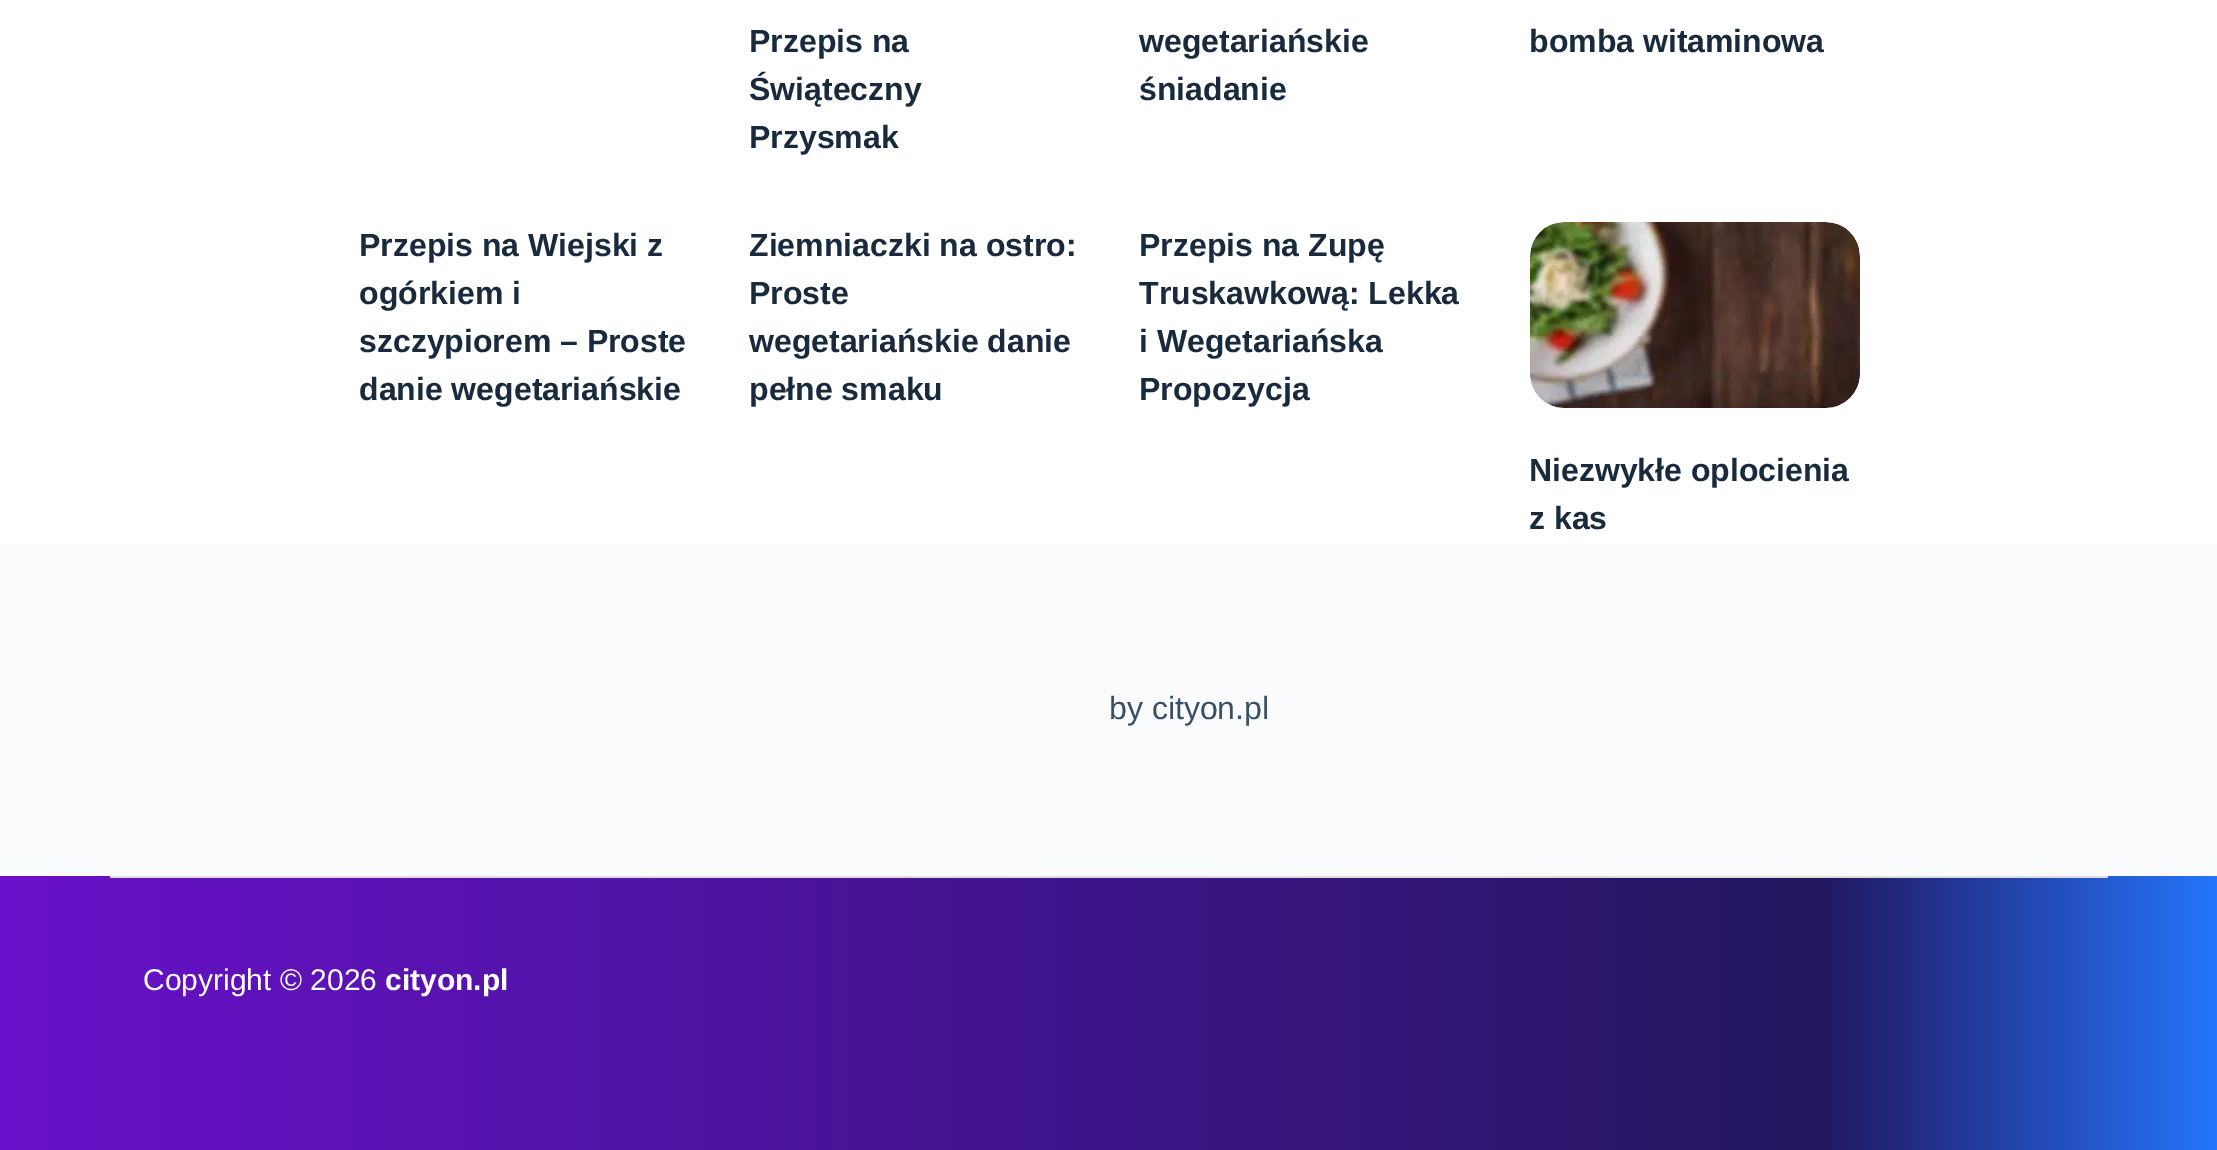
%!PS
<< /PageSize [2217 1150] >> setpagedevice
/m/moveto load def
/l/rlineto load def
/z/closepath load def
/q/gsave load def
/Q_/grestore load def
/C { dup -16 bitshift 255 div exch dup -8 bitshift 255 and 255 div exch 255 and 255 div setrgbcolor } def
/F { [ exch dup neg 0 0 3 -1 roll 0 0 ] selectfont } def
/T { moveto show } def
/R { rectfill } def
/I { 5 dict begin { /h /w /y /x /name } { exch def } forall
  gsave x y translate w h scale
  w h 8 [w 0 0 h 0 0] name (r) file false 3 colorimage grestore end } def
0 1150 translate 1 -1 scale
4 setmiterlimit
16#FFFFFF C
0 0 2217 1150 R
/LiberationSans-Bold 32 F
16#192A3D C
(Przepis na) 749 52 T
(Świąteczny) 749 100 T
(Przysmak) 749 148 T
(wegetariańskie) 1139 52 T
(śniadanie) 1139 100 T
(bomba witaminowa) 1529 52 T
(Przepis na Wiejski z) 359 256 T
(ogórkiem i) 359 304 T
(szczypiorem – Proste) 359 352 T
(danie wegetariańskie) 359 400 T
(Ziemniaczki na ostro:) 749 256 T
(Proste) 749 304 T
(wegetariańskie danie) 749 352 T
(pełne smaku) 749 400 T
(Przepis na Zupę) 1139 256 T
(Truskawkową: Lekka) 1139 304 T
(i Wegetariańska) 1139 352 T
(Propozycja) 1139 400 T
(1.rgb) 1530 222 330 186 I
(Niezwykłe oplocienia) 1529 481 T
(z kas) 1529 529 T
16#FAFBFC C
0 544 2217 332 R
/LiberationSans-Regular 32 F
16#3A4F66 C
(by cityon.pl) 1109 719 T
q 0 876 m 2217 0 l 0 274 l -2217 0 l z clip newpath
<< /ShadingType 2 /ColorSpace /DeviceRGB /Coords [0 1033 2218 1033] /Extend [true true] /Function << /FunctionType 3 /Domain [0 1] /Functions [<< /FunctionType 2 /Domain [0 1] /C0 [.416 .067 .796] /C1 [.133 .09 .369] /N 1 >> << /FunctionType 2 /Domain [0 1] /C0 [.133 .09 .369] /C1 [.145 .459 .988] /N 1 >>] /Bounds [.82] /Encode [0 1 0 1] >> >> shfill Q_
16#DDDDDD C
110 876 1998 2 R
/LiberationSans-Regular 30 F
16#FFFFFF C
(Copyright © 2026) 143 990 T
/LiberationSans-Bold 30 F
(cityon.pl) 385 990 T
showpage
